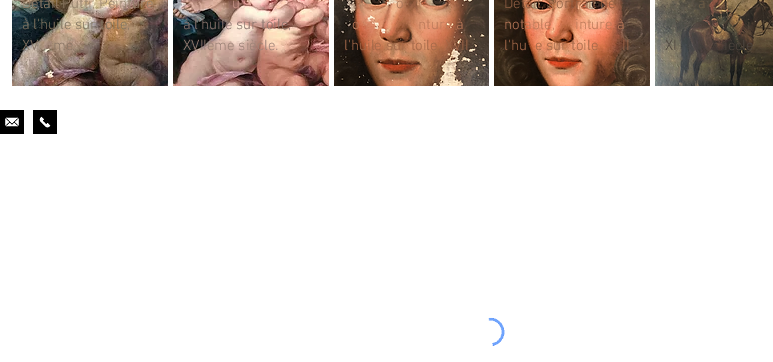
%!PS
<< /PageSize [773 362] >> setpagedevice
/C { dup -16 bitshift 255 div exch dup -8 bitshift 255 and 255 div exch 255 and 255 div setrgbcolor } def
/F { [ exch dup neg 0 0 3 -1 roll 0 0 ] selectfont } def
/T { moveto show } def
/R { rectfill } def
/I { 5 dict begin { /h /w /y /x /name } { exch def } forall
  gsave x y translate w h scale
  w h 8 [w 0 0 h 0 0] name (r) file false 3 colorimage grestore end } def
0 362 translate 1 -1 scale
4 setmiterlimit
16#FFFFFF C
0 0 773 362 R
(1.rgb) 12 0 156 86 I
/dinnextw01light-Light 15 F
16#96826D C
(Détail Putti, Peinture) 22 8 T
16#817460 C
(à l'huile sur toile,) 22 29 T
16#897666 C
(XV) 22 50 T
(me) 53 50 T
(2.rgb) 173 0 156 86 I
16#C69487 C
(u) 232 8 T
16#8B756E C
(à l'huile sur toile,) 183 29 T
16#9D8378 C
(XVIIème siècle.) 183 50 T
(3.rgb) 334 0 155 86 I
16#A57559 C
(o) 396 8 T
16#BC7A5A C
(o) 352 29 T
(nture à) 418 29 T
16#A36849 C
(l'huile sur toile, XVII) 344 50 T
(4.rgb) 494 0 156 86 I
16#905E43 C
(Détail, Portrait de) 504 8 T
16#BC7A5A C
(notable,) 504 29 T
(inture à) 575 29 T
16#A36849 C
(l'hu) 504 50 T
(e sur toile) 535 50 T
(II) 622 50 T
(5.rgb) 655 0 118 86 I
16#6D5D47 C
(a) 698 8 T
16#5B4E40 C
(i) 747 29 T
16#4E463F C
(XI) 665 50 T
(iècle) 724 50 T
(6.rgb) 0 110 24 24 I
(7.rgb) 33 110 24 24 I
(8.rgb) 488 317 17 29 I
showpage
